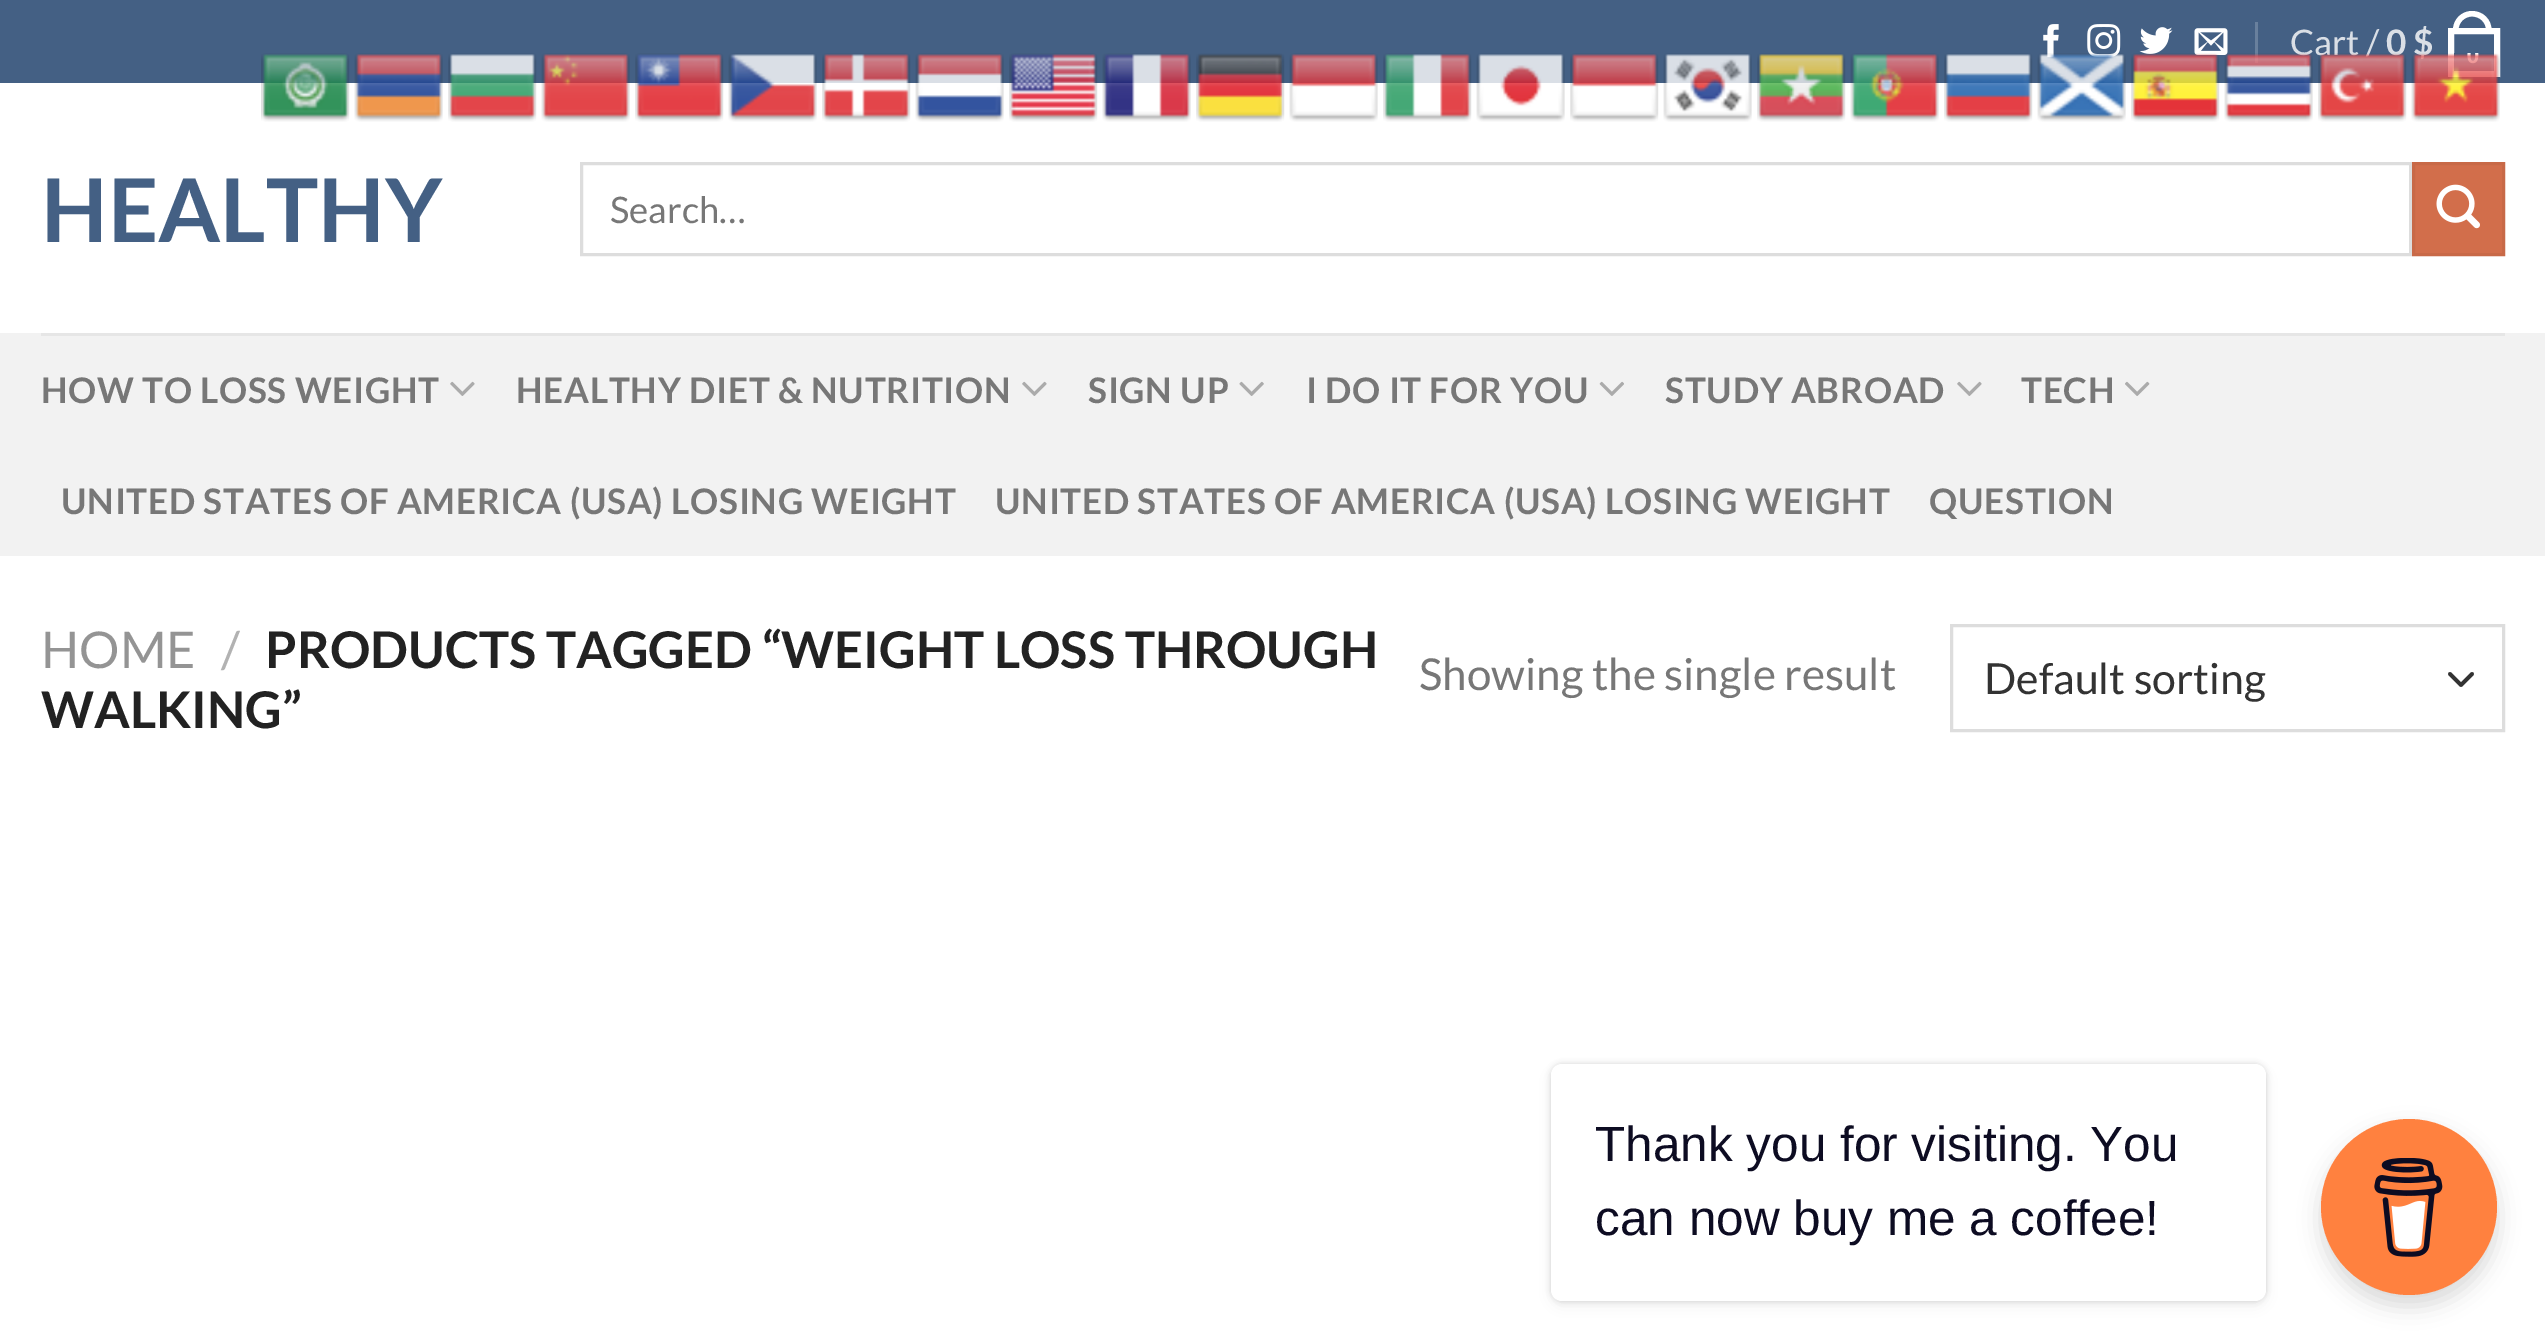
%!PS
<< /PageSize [2545 1343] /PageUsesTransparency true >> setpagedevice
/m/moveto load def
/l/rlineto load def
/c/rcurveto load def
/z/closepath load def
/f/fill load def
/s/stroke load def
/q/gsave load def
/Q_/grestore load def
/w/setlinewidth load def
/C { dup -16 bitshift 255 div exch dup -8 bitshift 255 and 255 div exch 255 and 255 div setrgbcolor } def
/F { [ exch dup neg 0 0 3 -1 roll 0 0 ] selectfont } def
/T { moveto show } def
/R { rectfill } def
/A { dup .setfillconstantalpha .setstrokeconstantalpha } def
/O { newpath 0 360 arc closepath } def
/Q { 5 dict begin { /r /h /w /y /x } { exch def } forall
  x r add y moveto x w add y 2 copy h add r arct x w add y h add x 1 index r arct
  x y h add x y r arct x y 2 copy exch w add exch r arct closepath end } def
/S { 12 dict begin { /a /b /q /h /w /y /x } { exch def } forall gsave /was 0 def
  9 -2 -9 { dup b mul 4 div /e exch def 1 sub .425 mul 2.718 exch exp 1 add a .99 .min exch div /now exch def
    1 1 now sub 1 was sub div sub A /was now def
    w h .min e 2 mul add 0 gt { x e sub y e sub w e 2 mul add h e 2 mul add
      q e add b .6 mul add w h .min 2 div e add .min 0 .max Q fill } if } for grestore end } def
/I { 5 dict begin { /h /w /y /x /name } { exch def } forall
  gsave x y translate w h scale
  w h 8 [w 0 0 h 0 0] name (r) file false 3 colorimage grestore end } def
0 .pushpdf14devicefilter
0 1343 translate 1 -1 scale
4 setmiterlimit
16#FFFFFF C
0 0 2545 1343 R
16#446084 C
0 0 2545 83 R
(1.rgb) 2043 24 16 34 I
(2.rgb) 2087 24 34 34 I
(3.rgb) 2139 27 34 27 I
(4.rgb) 2194 28 34 27 I
16#69809D C
2255 22 3 41 R
/Lato-Regular 35.2 F
16#DADFE6 C
(Cart /) 2290 55 T
/Lato-Bold 35.2 F
(0 $) 2386 55 T
16#FFFFFF C
6 w
2451 31 46 43 rectstroke
2472 11 m 11 0 19.5 8.5 19.5 19 c 0 3 l -38.5 0 l 0 -3 l 0 -10.5 8.5 -19 19 -19 c z 2472 16.5 m 8 0 14 6 14 13.5 c 0 3 l -27.5 0 l 0 -3 l 0 -7.5 6 -13.5 13.5 -13.5 c z eofill
/Lato-Bold 88 F
16#446084 C
(HEALTHY) 41 242 T
16#DDDDDD C
3 w
581.5 163.5 1829 91 rectstroke
/Lato-Regular 36.5 F
16#777777 C
(Search…) 610 223 T
16#D26E4B C
2413.5 163.5 m 90 0 l 0 91 l -90 0 l z q f Q_
16#C86947 C
s
(5.rgb) 2436 184 44 45 I
16#F2F2F2 C
0 333 2545 223 R
16#E6E6E6 C
41 333 2464 3 R
/Lato-Bold 35.2 F
16#777777 C
41 403 m .7 0 (HOW TO LOSS WEIGHT) ashow
(6.rgb) 450 381 25 15 I
516 403 m .7 0 (HEALTHY DIET & NUTRITION) ashow
(6.rgb) 1022 381 25 15 I
1088 403 m .7 0 (SIGN UP) ashow
(7.rgb) 1239 381 25 15 I
1306 403 m .7 0 (I DO IT FOR YOU) ashow
(8.rgb) 1599 381 25 15 I
1665 403 m .7 0 (STUDY ABROAD) ashow
(6.rgb) 1957 381 25 15 I
2021 403 m .7 0 (TECH) ashow
(9.rgb) 2125 381 25 15 I
61 514 m .7 0 (UNITED STATES OF AMERICA \(USA\) LOSING WEIGHT) ashow
995 514 m .7 0 (UNITED STATES OF AMERICA \(USA\) LOSING WEIGHT) ashow
1929 514 m .7 0 (QUESTION) ashow
/Lato-Regular 50.6 F
16#949494 C
(HOME) 41 668 T
16#B2B2B2 C
(/) 221 668 T
/Lato-Bold 50.6 F
16#222222 C
(PRODUCTS TAGGED “WEIGHT LOSS THROUGH) 265 668 T
(WALKING”) 41 728 T
/Lato-Regular 44 F
16#777777 C
(Showing the single result) 1419 690 T
16#333333 C
3.7 w
1 setlinecap
1 setlinejoin
2450 674 m 11 11 l 11 -11 l s
16#DDDDDD C
3 w
0 setlinecap
0 setlinejoin
1951.5 625.5 552 105 rectstroke
/Lato-Regular 42.75 F
16#333333 C
(Default sorting) 1984 694 T
(10.rgb) 261 53 89 69 I
(11.rgb) 354 53 89 69 I
(12.rgb) 448 53 89 69 I
(13.rgb) 541 53 89 69 I
(14.rgb) 635 53 89 69 I
(15.rgb) 728 53 89 69 I
(16.rgb) 822 53 89 69 I
(17.rgb) 915 53 89 69 I
(18.rgb) 1009 53 89 69 I
(19.rgb) 1102 53 89 69 I
(20.rgb) 1196 53 89 69 I
(21.rgb) 1289 53 89 69 I
(22.rgb) 1383 53 89 69 I
(23.rgb) 1476 53 89 69 I
(24.rgb) 1570 53 89 69 I
(25.rgb) 1663 53 89 69 I
(26.rgb) 1757 53 89 69 I
(27.rgb) 1850 53 89 69 I
(28.rgb) 1944 53 89 69 I
(29.rgb) 2037 53 89 69 I
(30.rgb) 2131 53 89 69 I
(31.rgb) 2224 53 89 69 I
(32.rgb) 2318 53 89 69 I
(33.rgb) 2411 53 89 69 I
16#000000 C
1551 1064 715 237 11 3 .15 S
1551 1070 715 236 11 7 .05 S
16#FFFFFF C
1551 1064 715 237 11 Q f
/LiberationSans-Regular 49.5 F
16#0D0C22 C
(Thank you for visiting. You) 1595 1161 T
(can now buy me a coffee!) 1595 1235 T
16#000000 C
2321 1130 176 176 88 11 .15 S
16#FF813F C
2409 1207 88 O f
(34.rgb) 2374 1158 69 99 I
.poppdf14devicefilter showpage
